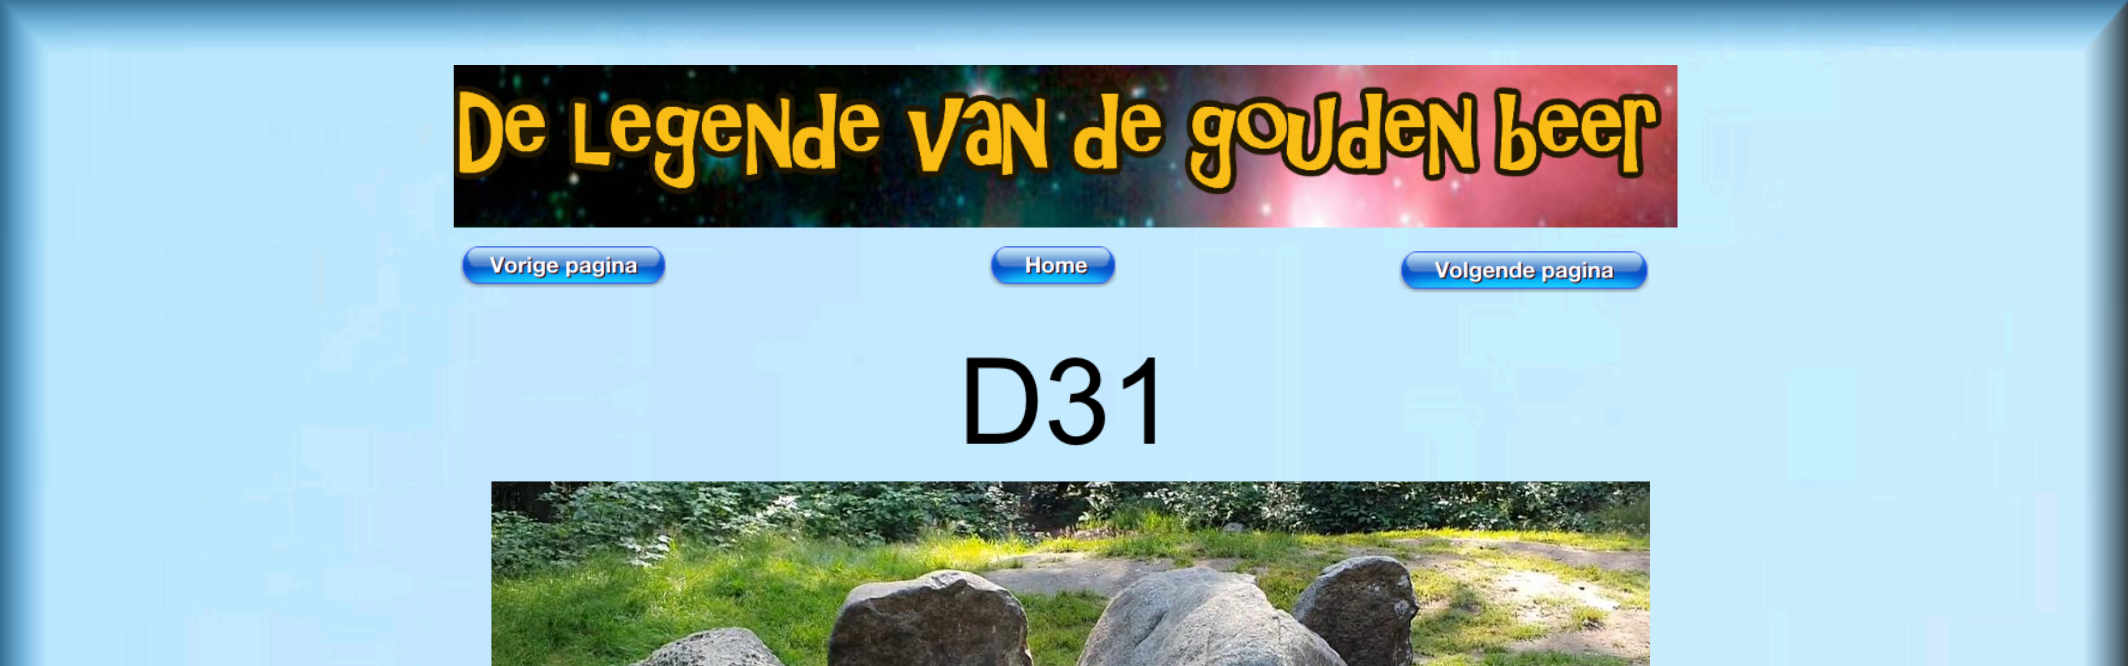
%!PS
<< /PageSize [2128 666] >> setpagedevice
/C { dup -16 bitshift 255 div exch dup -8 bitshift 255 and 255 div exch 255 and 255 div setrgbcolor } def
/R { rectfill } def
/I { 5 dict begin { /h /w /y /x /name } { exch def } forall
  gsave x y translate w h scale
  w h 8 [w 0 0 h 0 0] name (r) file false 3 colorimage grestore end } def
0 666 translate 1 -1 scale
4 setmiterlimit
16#FFFFFF C
0 0 2128 666 R
(1.rgb) 0 0 2128 666 I
(2.rgb) 453 65 1225 163 I
(3.rgb) 460 246 207 42 I
(4.rgb) 988 246 129 42 I
(5.rgb) 1398 251 251 42 I
(6.rgb) 966 357 190 90 I
(7.rgb) 491 481 1159 185 I
showpage
